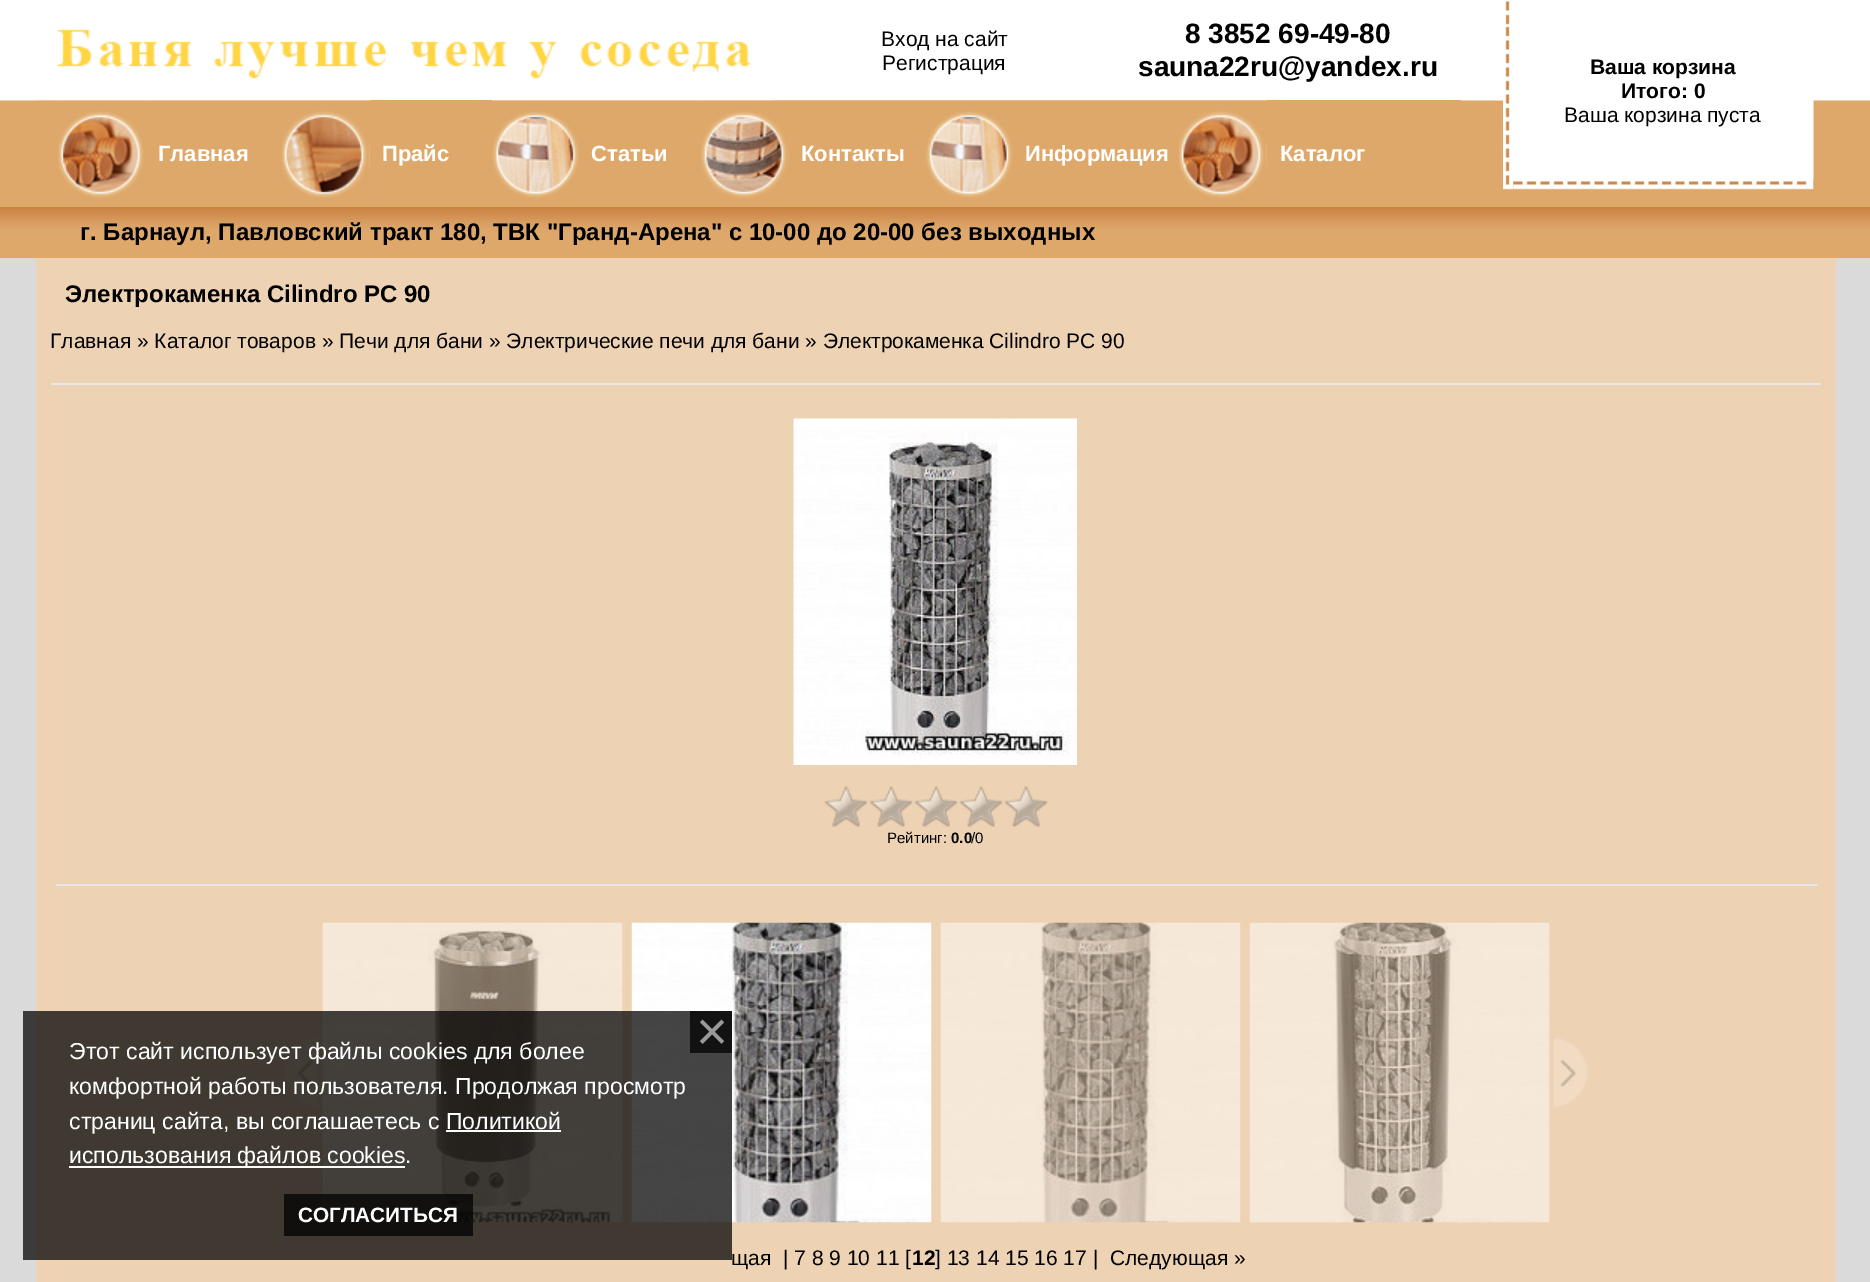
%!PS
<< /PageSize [1870 1282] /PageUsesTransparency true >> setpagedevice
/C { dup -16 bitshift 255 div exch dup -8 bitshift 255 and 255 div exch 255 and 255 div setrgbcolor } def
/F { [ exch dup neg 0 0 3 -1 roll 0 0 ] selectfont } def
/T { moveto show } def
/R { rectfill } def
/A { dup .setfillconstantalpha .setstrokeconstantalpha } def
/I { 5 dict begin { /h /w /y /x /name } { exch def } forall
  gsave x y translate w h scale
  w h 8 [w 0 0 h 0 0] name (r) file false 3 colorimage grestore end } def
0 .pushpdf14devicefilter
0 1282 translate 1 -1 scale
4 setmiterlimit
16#DADADA C
0 0 1870 1282 R
(1.rgb) 0 0 1870 207 I
(2.rgb) 36 29 738 72 I
/LiberationSans-Regular 21 F
16#000000 C
(Вход на сайт) 881 46 T
(Регистрация) 882 70 T
/LiberationSans-Bold 28 F
(8 3852 69-49-80) 1185 43 T
(sauna22ru@yandex.ru) 1138 76 T
(3.rgb) 36 100 23 1 I
(4.rgb) 58 100 88 98 I
(5.rgb) 145 100 137 1 I
/LiberationSans-Bold 22 F
16#FFFFFF C
(Главная) 158 161 T
(6.rgb) 282 100 89 98 I
16#DEA86B C
370 100 122 64 R
16#FFFFFF C
(Прайс) 382 161 T
(7.rgb) 492 100 87 98 I
(8.rgb) 579 100 122 1 I
(Статьи) 591 161 T
(9.rgb) 700 100 89 98 I
(10.rgb) 789 100 137 1 I
(Контакты) 801 161 T
(11.rgb) 925 100 88 98 I
(12.rgb) 1012 100 167 1 I
(Информация) 1025 161 T
(13.rgb) 1179 100 89 98 I
16#DEA86B C
1267 100 194 64 R
16#FFFFFF C
(Каталог) 1280 161 T
(14.rgb) 1503 1 11 179 I
1513 100 301 80 R
/LiberationSans-Bold 21 F
16#000000 C
(Ваша корзина) 1590 74 T
(Итого: 0) 1621 98 T
/LiberationSans-Regular 21 F
(Ваша корзина пуста) 1564 122 T
(15.rgb) 1503 180 11 10 I
(16.rgb) 1513 180 301 10 I
(17.rgb) 1813 100 1 90 I
(18.rgb) 0 207 1870 51 I
/LiberationSans-Bold 24 F
(г. Барнаул, Павловский тракт 180, ТВК "Гранд-Арена" с 10-00 до 20-00 без выходных) 80 240 T
16#EDD2B4 C
36 258 1800 1024 R
16#000000 C
(Электрокаменка Cilindro PC 90) 65 302 T
/LiberationSans-Regular 21 F
(Главная » Каталог товаров » Печи для бани » Электрические печи для бани » Электрокаменка Cilindro PC 90) 50 348 T
16#E8E8E8 C
51 383 1770 2 R
(19.rgb) 793 418 284 347 I
(20.rgb) 824 786 224 41 I
/LiberationSans-Regular 15 F
16#000000 C
(Рейтинг:) 887 843 T
/LiberationSans-Bold 15 F
(0.0) 951 843 T
/LiberationSans-Regular 15 F
(/0) 971 843 T
16#E8E8E8 C
56 884 1761 2 R
(21.rgb) 285 1038 33 69 I
(22.rgb) 322 922 301 301 I
(23.rgb) 631 922 301 301 I
(24.rgb) 940 922 301 301 I
(25.rgb) 1249 922 301 301 I
(26.rgb) 1554 1038 33 69 I
/LiberationSans-Regular 21 F
16#000000 C
(щая) 731 1265 T
(| 7 8 9 10 11 [) 783 1265 T
/LiberationSans-Bold 21 F
(12) 912 1265 T
/LiberationSans-Regular 21 F
(] 13 14 15 16 17 |) 935 1265 T
(Следующая ») 1110 1265 T
0.73 A
23 1011 709 249 R
1 A
16#121212 C
690 1011 42 42 R
/LiberationSans-Regular 55 F
16#999999 C
(×) 696 1050 T
0.73 A
16#000000 C
284 1194 189 42 R
/LiberationSans-Bold 20.75 F
1 A
16#FFFFFF C
(СОГЛАСИТЬСЯ) 298 1222 T
/LiberationSans-Regular 23.1 F
(Этот сайт использует файлы cookies для более) 69 1059 T
(комфортной работы пользователя. Продолжая просмотр) 69 1094 T
(страниц сайта, вы соглашаетесь с Политикой) 69 1129 T
69 1166 336 2 R
(использования файлов cookies.) 69 1163 T
446 1130 115 2 R
.poppdf14devicefilter showpage
